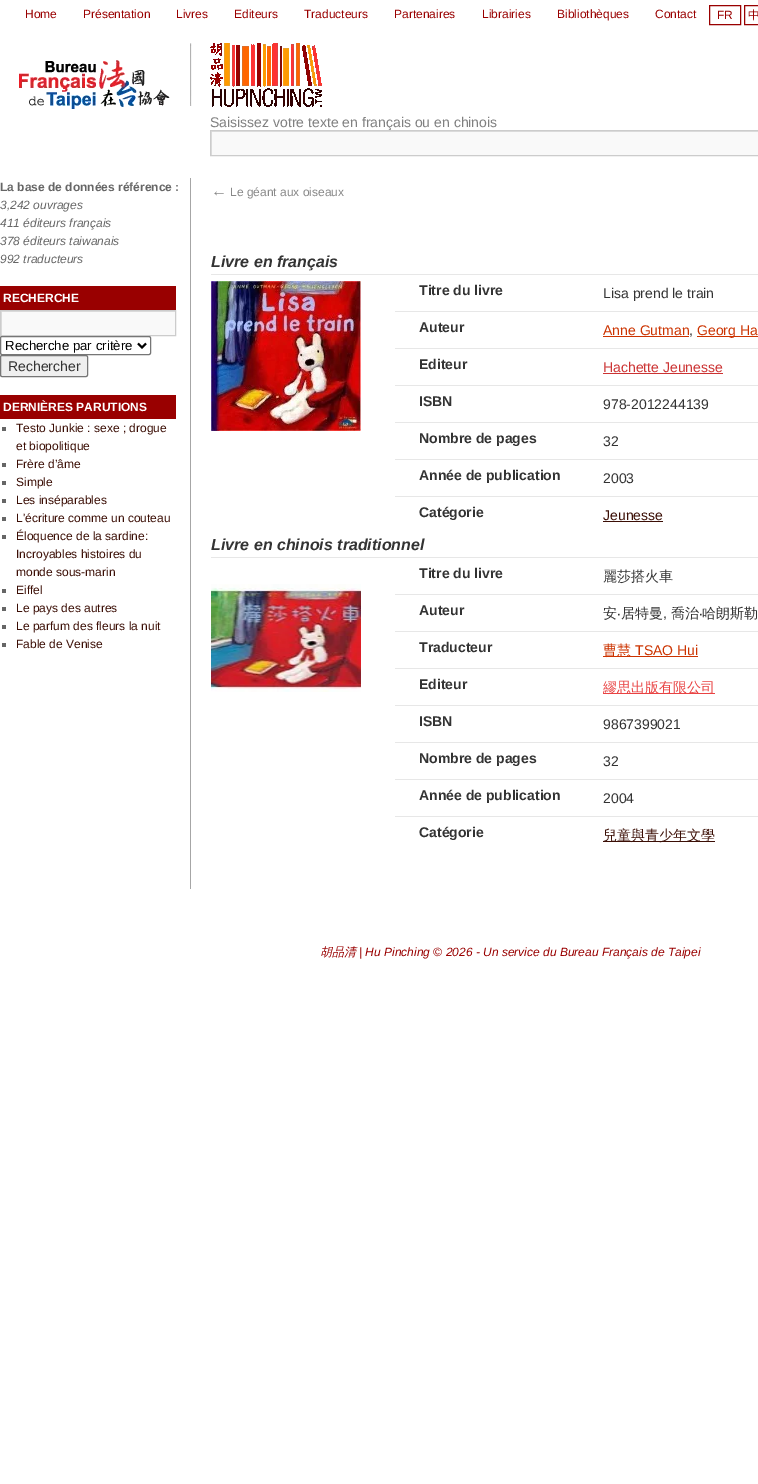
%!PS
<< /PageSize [758 1484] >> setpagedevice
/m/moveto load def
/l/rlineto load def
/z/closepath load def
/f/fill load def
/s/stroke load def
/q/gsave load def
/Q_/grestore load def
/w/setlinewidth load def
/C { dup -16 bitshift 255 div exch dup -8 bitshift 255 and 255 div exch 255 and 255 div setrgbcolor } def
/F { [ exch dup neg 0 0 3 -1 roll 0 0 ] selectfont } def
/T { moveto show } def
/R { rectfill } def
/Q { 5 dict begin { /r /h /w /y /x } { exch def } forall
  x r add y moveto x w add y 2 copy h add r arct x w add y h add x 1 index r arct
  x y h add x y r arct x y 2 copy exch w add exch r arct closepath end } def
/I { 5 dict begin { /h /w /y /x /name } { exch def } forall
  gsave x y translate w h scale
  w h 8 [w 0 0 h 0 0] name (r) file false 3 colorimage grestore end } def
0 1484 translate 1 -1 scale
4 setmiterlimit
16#FFFFFF C
0 0 758 1484 R
/LiberationSans-Regular 12 F
16#990000 C
(Home) 25 18 T
(Présentation) 83 18 T
(Livres) 176 18 T
(Editeurs) 234 18 T
(Traducteurs) 304 18 T
(Partenaires) 394 18 T
(Librairies) 482 18 T
(Bibliothèques) 557 18 T
(Contact) 655 18 T
709.5 5.5 31 19 rectstroke
(FR) 717 19 T
744.5 5.5 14 19 rectstroke
/WenQuanYiZenHei-Medium 12 F
(中) 748 19 T
(1.rgb) 19 43 303 66 I
/LiberationSans-Regular 14 F
16#808080 C
(Saisissez votre texte en français ou en chinois) 210 127 T
16#F9F9F9 C
212 132 546 23 R
q
211 131 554 24 rectclip
16#E0E0E0 C
112 32 m 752 0 l 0 222 l -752 0 l z 212 132 m 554 0 l 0 24 l -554 0 l z eofill
Q_
16#CCCCCC C
210.5 130.5 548 25 rectstroke
/LiberationSans-Bold 12 F
16#666666 C
(La base de données référence :) 0 191 T
/LiberationSans-Italic 12 F
(3,242 ouvrages) 0 209 T
(411 éditeurs français) 0 227 T
(378 éditeurs taiwanais) 0 245 T
(992 traducteurs) 0 263 T
16#990000 C
0 286 176 24 R
/LiberationSans-Bold 12 F
16#FFFFFF C
(RECHERCHE) 3 302 T
16#F9F9F9 C
2 312 173 23 R
q
1 311 174 24 rectclip
16#E0E0E0 C
-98 212 m 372 0 l 0 222 l -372 0 l z 2 312 m 174 0 l 0 24 l -174 0 l z eofill
Q_
16#CCCCCC C
.5 310.5 175 25 rectstroke
16#767676 C
.5 336.5 150 18 1.5 Q s
16#000000 C
2 w
138 343.5 m 4 4 l 4 -4 l s
/LiberationSans-Regular 13.25 F
(Recherche par critère) 5 350 T
16#EFEFEF C
.5 355.5 87 21 1.5 Q q f Q_
16#767676 C
1 w
s
/LiberationSans-Regular 14 F
16#333333 C
(Rechercher) 8 371 T
16#990000 C
0 395 176 24 R
/LiberationSans-Bold 12 F
16#FFFFFF C
(DERNIÈRES PARUTIONS) 3 411 T
16#666666 C
2 427 4 4 R
/LiberationSans-Regular 12 F
16#3B0E05 C
(Testo Junkie : sexe ; drogue) 16 432 T
(et biopolitique) 16 450 T
16#666666 C
2 463 4 4 R
16#3B0E05 C
(Frère d’âme) 16 468 T
16#666666 C
2 481 4 4 R
16#3B0E05 C
(Simple) 16 486 T
16#666666 C
2 499 4 4 R
16#3B0E05 C
(Les inséparables) 16 504 T
16#666666 C
2 517 4 4 R
16#3B0E05 C
(L'écriture comme un couteau) 16 522 T
16#666666 C
2 535 4 4 R
16#3B0E05 C
(Éloquence de la sardine:) 16 540 T
(Incroyables histoires du) 16 558 T
(monde sous-marin) 16 576 T
16#666666 C
2 589 4 4 R
16#3B0E05 C
(Eiffel) 16 594 T
16#666666 C
2 607 4 4 R
16#3B0E05 C
(Le pays des autres) 16 612 T
16#666666 C
2 625 4 4 R
16#3B0E05 C
(Le parfum des fleurs la nuit) 16 630 T
16#666666 C
2 643 4 4 R
16#3B0E05 C
(Fable de Venise) 16 648 T
16#A6A6A6 C
190 178 1 711 R
/LiberationSans-Regular 16 F
16#888888 C
(←) 211 196 T
/LiberationSans-Regular 12 F
(Le géant aux oiseaux) 230 196 T
/LiberationSans-BoldItalic 16 F
16#333333 C
(Livre en français) 211 267 T
(2.rgb) 211 281 150 150 I
/LiberationSans-Bold 14 F
(Titre du livre) 419 295 T
16#E7E7E7 C
211 274 547 1 R
/LiberationSans-Regular 14 F
16#333333 C
(Lisa prend le train) 603 298 T
/LiberationSans-Bold 14 F
(Auteur) 419 332 T
16#E7E7E7 C
395 311 363 1 R
/LiberationSans-Regular 14 F
16#CC3300 C
(Anne Gutman) 603 335 T
603 336 86 1 R
16#333333 C
(,) 689 335 T
16#CC3300 C
697 336 61 1 R
(Georg Ha) 697 335 T
/LiberationSans-Bold 14 F
16#333333 C
(Editeur) 419 369 T
16#E7E7E7 C
395 348 363 1 R
/LiberationSans-Regular 14 F
16#CC3333 C
(Hachette Jeunesse) 603 372 T
603 373 120 1 R
/LiberationSans-Bold 14 F
16#333333 C
(ISBN) 419 406 T
16#E7E7E7 C
395 385 363 1 R
/LiberationSans-Regular 14 F
16#333333 C
(978-2012244139) 603 409 T
/LiberationSans-Bold 14 F
(Nombre de pages) 419 443 T
16#E7E7E7 C
395 422 363 1 R
/LiberationSans-Regular 14 F
16#333333 C
(32) 603 446 T
/LiberationSans-Bold 14 F
(Année de publication) 419 480 T
16#E7E7E7 C
395 459 363 1 R
/LiberationSans-Regular 14 F
16#333333 C
(2003) 603 483 T
/LiberationSans-Bold 14 F
(Catégorie) 419 517 T
16#E7E7E7 C
395 496 363 1 R
/LiberationSans-Regular 14 F
16#3B0E05 C
(Jeunesse) 603 520 T
603 521 60 1 R
/LiberationSans-BoldItalic 16 F
16#333333 C
(Livre en chinois traditionnel) 211 550 T
/LiberationSans-Bold 14 F
(Titre du livre) 419 578 T
16#E7E7E7 C
211 557 547 1 R
/WenQuanYiZenHei-Medium 14 F
16#333333 C
(麗莎搭火車) 603 581 T
(3.rgb) 211 584 150 108 I
/LiberationSans-Bold 14 F
(Auteur) 419 615 T
16#E7E7E7 C
395 594 363 1 R
/WenQuanYiZenHei-Medium 14 F
16#333333 C
(安) 603 618 T
/NotoSans-Regular 14 F
(‧) 617 618 T
/WenQuanYiZenHei-Medium 14 F
(居特曼) 621 618 T
(喬治) 671 618 T
/NotoSans-Regular 14 F
(‧) 699 618 T
/WenQuanYiZenHei-Medium 14 F
(哈朗斯勒) 702 618 T
/LiberationSans-Regular 14 F
(,) 663 618 T
/LiberationSans-Bold 14 F
(Traducteur) 419 652 T
16#E7E7E7 C
395 631 363 1 R
16#CC3300 C
603 656 95 1 R
/WenQuanYiZenHei-Medium 14 F
(曹慧) 603 655 T
/LiberationSans-Regular 14 F
(TSAO Hui) 635 655 T
/LiberationSans-Bold 14 F
16#333333 C
(Editeur) 419 689 T
16#E7E7E7 C
395 668 363 1 R
16#E94343 C
603 693 112 1 R
/WenQuanYiZenHei-Medium 14 F
(繆思出版有限公司) 603 692 T
/LiberationSans-Bold 14 F
16#333333 C
(ISBN) 419 726 T
16#E7E7E7 C
395 705 363 1 R
/LiberationSans-Regular 14 F
16#333333 C
(9867399021) 603 729 T
/LiberationSans-Bold 14 F
(Nombre de pages) 419 763 T
16#E7E7E7 C
395 742 363 1 R
/LiberationSans-Regular 14 F
16#333333 C
(32) 603 766 T
/LiberationSans-Bold 14 F
(Année de publication) 419 800 T
16#E7E7E7 C
395 779 363 1 R
/LiberationSans-Regular 14 F
16#333333 C
(2004) 603 803 T
/LiberationSans-Bold 14 F
(Catégorie) 419 837 T
16#E7E7E7 C
395 816 363 1 R
16#3B0E05 C
603 841 112 1 R
/WenQuanYiZenHei-Medium 14 F
(兒童與青少年文學) 603 840 T
/WenQuanYiZenHei-MediumItalic 12 F
16#990000 C
(胡品清) 320 956 T
/LiberationSans-Italic 12 F
(| Hu Pinching © 2026 - Un service du Bureau Français de Taipei) 359 956 T
showpage
